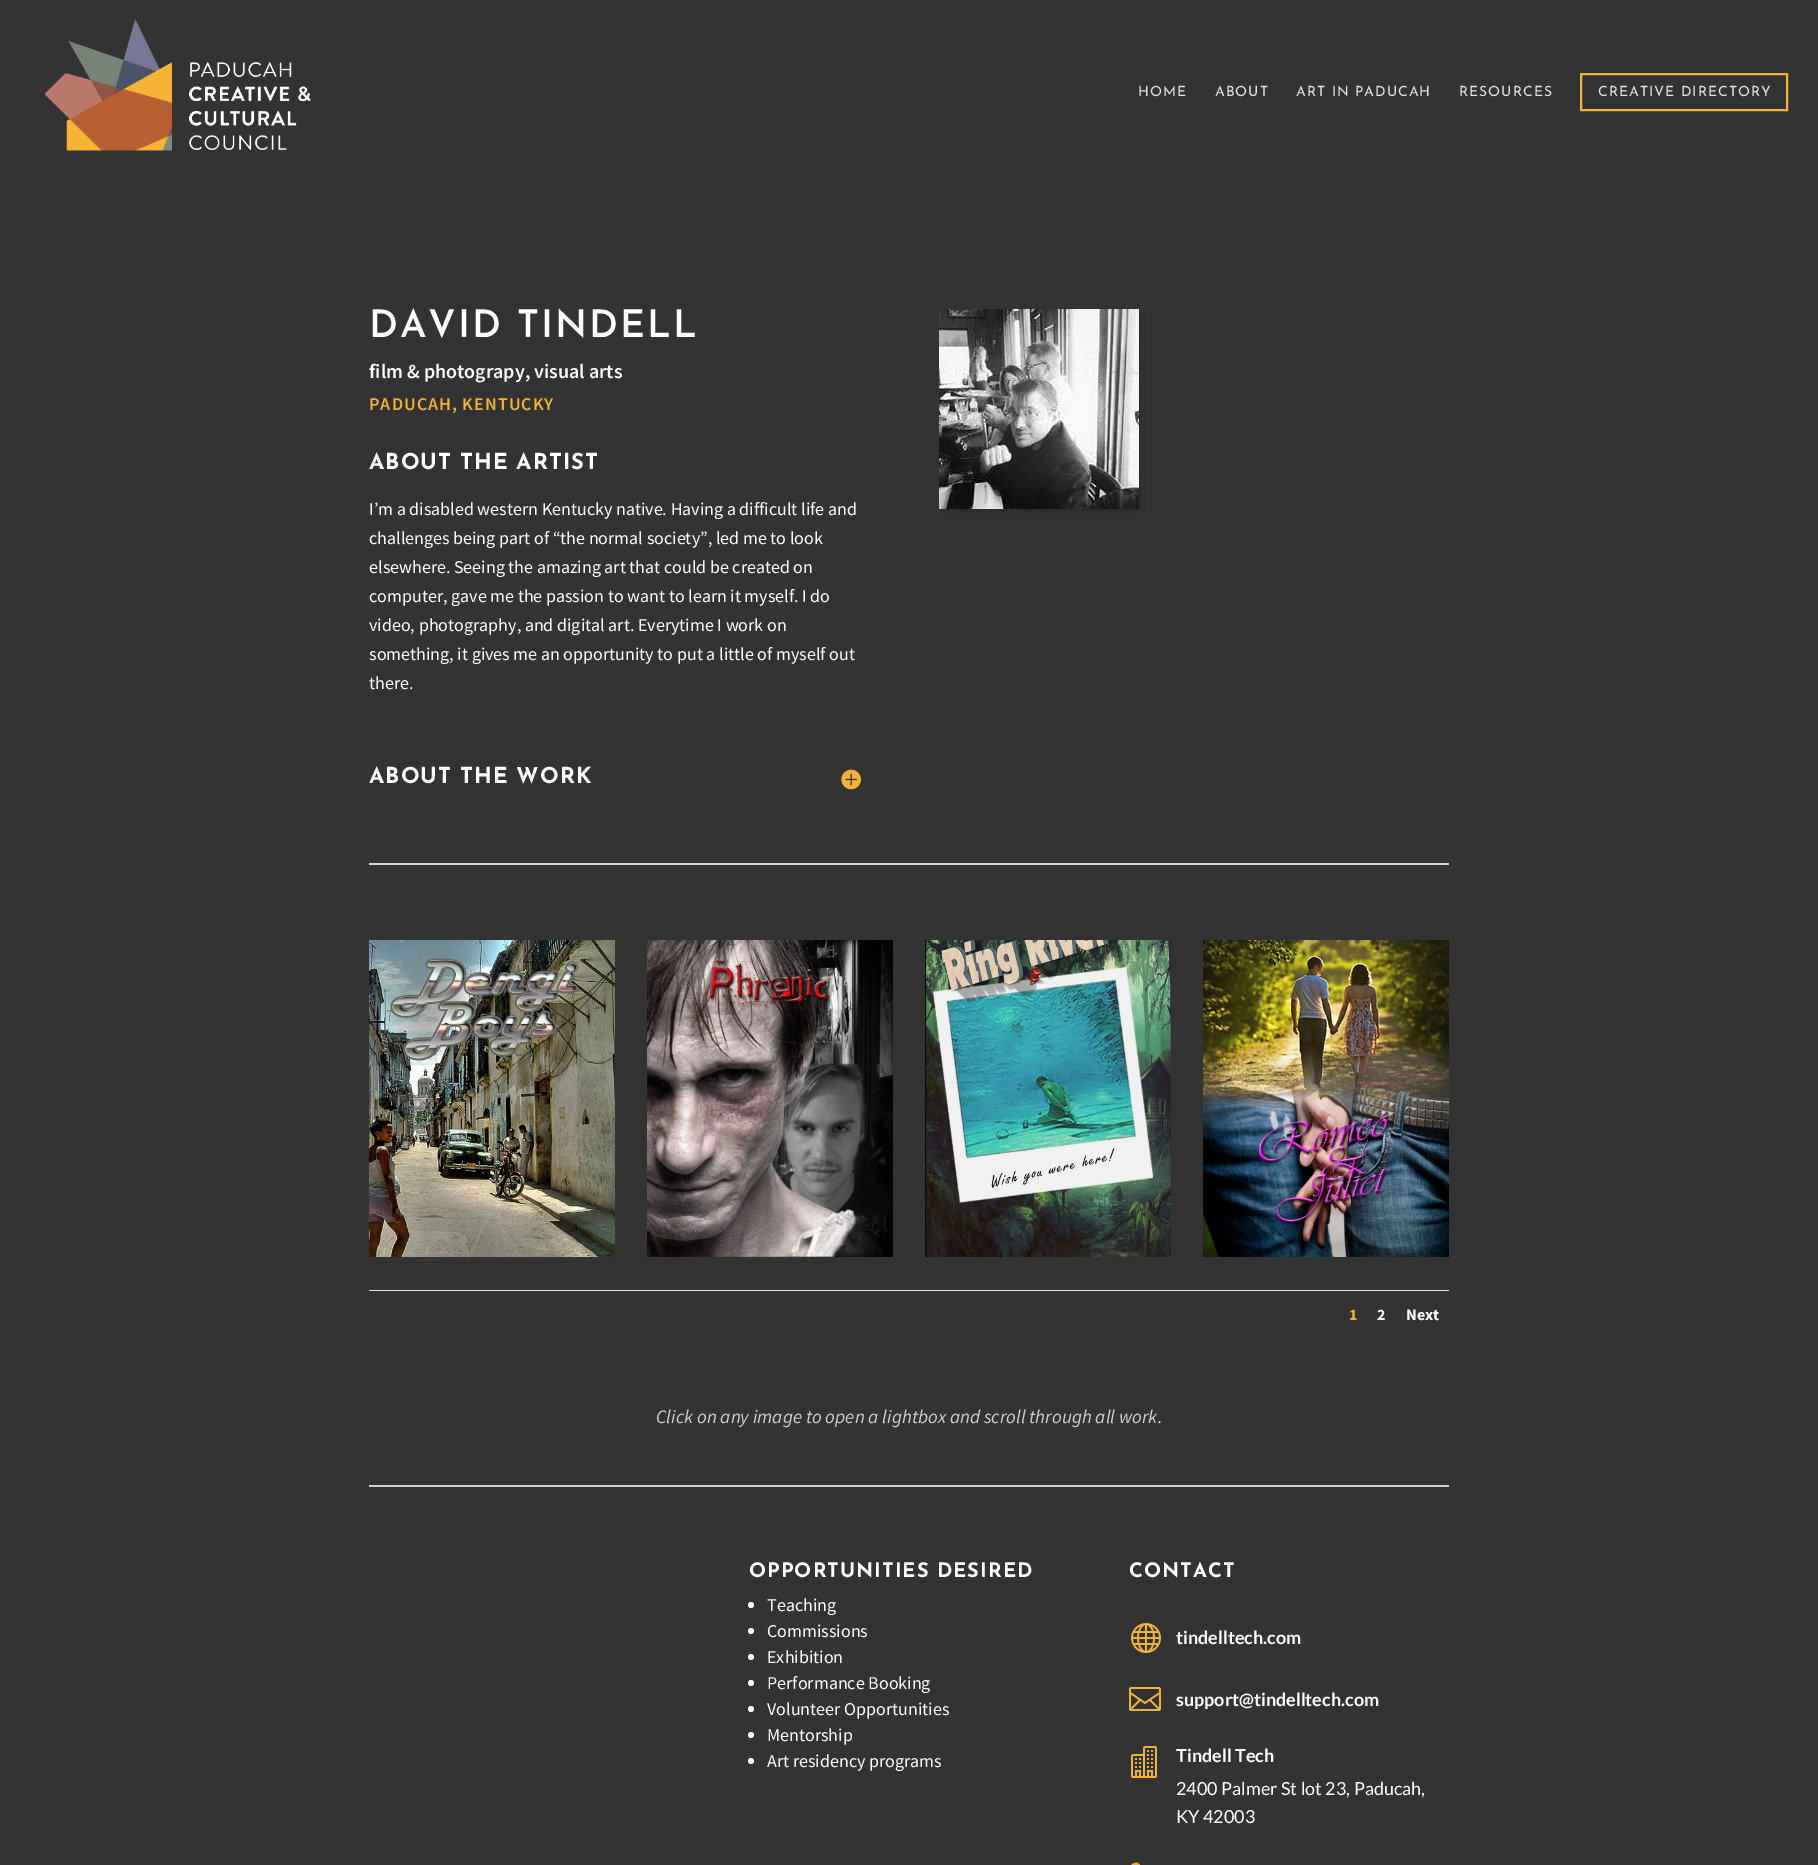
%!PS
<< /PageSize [1818 1865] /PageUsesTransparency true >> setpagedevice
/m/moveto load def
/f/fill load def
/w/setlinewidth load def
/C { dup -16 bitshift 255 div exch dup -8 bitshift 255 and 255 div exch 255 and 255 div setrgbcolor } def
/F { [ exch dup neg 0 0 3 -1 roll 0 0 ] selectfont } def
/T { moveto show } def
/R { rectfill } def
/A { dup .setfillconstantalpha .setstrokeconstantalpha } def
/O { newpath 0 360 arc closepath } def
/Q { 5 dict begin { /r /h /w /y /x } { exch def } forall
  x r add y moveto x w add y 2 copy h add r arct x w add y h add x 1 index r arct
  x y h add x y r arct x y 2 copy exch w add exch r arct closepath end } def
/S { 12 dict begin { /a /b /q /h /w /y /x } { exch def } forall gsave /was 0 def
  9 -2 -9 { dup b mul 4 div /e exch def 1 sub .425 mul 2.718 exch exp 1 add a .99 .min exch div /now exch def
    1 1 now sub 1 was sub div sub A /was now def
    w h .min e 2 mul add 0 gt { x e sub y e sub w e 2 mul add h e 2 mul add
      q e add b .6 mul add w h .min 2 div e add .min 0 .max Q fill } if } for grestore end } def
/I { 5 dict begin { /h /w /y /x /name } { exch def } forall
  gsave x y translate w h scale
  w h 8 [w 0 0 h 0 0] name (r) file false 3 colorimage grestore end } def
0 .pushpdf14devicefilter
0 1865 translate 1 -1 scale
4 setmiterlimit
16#333333 C
0 0 1818 1865 R
(1.rgb) 44 19 267 132 I
/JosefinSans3-Thin 14 F
16#E4E4E4 C
1138 96 m 1 0 (HOME) ashow
1215 96 m 1 0 (ABOUT) ashow
1296 96 m 1 0 (ART IN PADUCAH) ashow
1459 96 m 1 0 (RESOURCES) ashow
16#F4B332 C
2 w
1581 74 206 36 rectstroke
16#E4E4E4 C
1598 96 m 1 0 (CREATIVE DIRECTORY) ashow
/JosefinSans-Thin 38 F
16#FFFFFF C
369 337 m 2 0 (DAVID TINDELL) ashow
/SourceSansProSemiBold-SemiBold 20 F
(film & photograpy, visual arts) 369 378 T
/SourceSansProSemiBold-SemiBold 18 F
16#F4B333 C
369 410 m 1 0 (PADUCAH, KENTUCKY) ashow
/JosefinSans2-Thin 22 F
16#FFFFFF C
369 469 m 1 0 (ABOUT THE ARTIST) ashow
/SourceSansPro-Regular 18 F
(I’m a disabled western Kentucky native. Having a difficult life and) 369 515 T
(challenges being part of “the normal society”, led me to look) 369 544 T
(elsewhere. Seeing the amazing art that could be created on) 369 573 T
(computer, gave me the passion to want to learn it myself. I do) 369 602 T
(video, photography, and digital art. Everytime I work on) 369 631 T
(something, it gives me an opportunity to put a little of myself out) 369 660 T
(there.) 369 689 T
/JosefinSans2-Thin 22 F
369 783 m 1 0 (ABOUT THE WORK) ashow
(2.rgb) 841 769 20 21 I
16#000000 C
944 314 196 196 0 3 .29 S
(3.rgb) 939 309 200 200 I
16#D2D2D2 C
369 863 1080 2 R
(4.rgb) 369 940 246 317 I
(5.rgb) 647 940 246 317 I
(6.rgb) 925 940 246 317 I
(7.rgb) 1203 940 246 317 I
16#E2E2E2 C
369 1290 1080 1 R
/SourceSansPro-Bold 16 F
16#F4B333 C
(1) 1349 1320 T
16#FFFFFF C
(2) 1377 1320 T
(Next) 1406 1320 T
/SourceSansPro-Italic 19 F
16#CECECE C
(Click on any image to open a lightbox and scroll through all work.) 656 1423 T
16#D2D2D2 C
369 1485 1080 2 R
/JosefinSans2-Thin 20 F
16#FFFFFF C
749 1577 m 1 0 (OPPORTUNITIES DESIRED) ashow
751 1605 3 O f
/SourceSansPro-Regular 18 F
(Teaching) 767 1611 T
751 1631 3 O f
(Commissions) 767 1637 T
751 1657 3 O f
(Exhibition) 767 1663 T
751 1683 3 O f
(Performance Booking) 767 1689 T
751 1709 3 O f
(Volunteer Opportunities) 767 1715 T
751 1735 3 O f
(Mentorship) 767 1741 T
751 1761 3 O f
(Art residency programs) 767 1767 T
/JosefinSans2-Thin 20 F
1129 1577 m 1 0 (CONTACT) ashow
(8.rgb) 1131 1623 30 30 I
/Lato-Bold 18 F
(tindelltech.com) 1176 1644 T
(9.rgb) 1129 1687 32 24 I
(support@tindelltech.com) 1176 1706 T
(10.rgb) 1131 1746 26 32 I
(Tindell Tech) 1176 1762 T
/Lato-Regular 18 F
(2400 Palmer St lot 23, Paducah,) 1176 1795 T
(KY 42003) 1176 1823 T
(11.rgb) 1131 1862 10 3 I
.poppdf14devicefilter showpage
